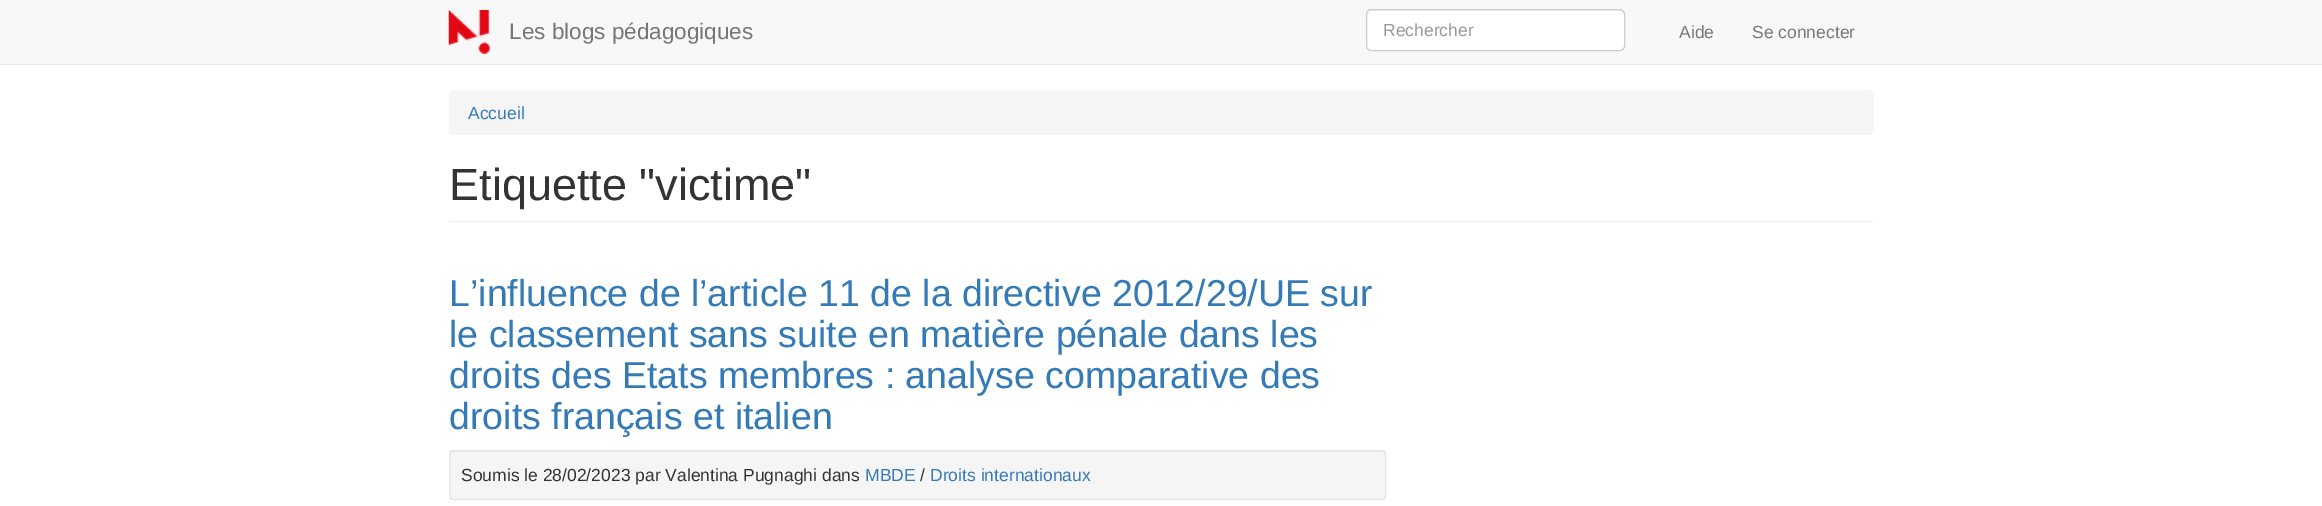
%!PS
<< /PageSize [2322 506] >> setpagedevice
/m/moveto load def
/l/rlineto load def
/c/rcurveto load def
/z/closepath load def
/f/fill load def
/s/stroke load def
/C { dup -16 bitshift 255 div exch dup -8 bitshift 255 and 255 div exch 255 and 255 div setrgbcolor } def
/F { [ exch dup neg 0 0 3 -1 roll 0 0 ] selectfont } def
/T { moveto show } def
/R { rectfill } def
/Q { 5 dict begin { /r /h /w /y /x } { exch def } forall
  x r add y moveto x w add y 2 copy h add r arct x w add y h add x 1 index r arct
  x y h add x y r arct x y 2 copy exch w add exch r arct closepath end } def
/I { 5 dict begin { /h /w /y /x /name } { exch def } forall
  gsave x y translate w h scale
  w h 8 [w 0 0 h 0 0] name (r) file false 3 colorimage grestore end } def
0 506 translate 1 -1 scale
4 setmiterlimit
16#FFFFFF C
0 0 2322 506 R
16#F8F8F8 C
0 0 2322 64 R
16#E7E7E7 C
0 64 2322 1 R
(1.rgb) 448 10 42 44 I
/LiberationSans-Regular 22.5 F
16#777777 C
(Les blogs pédagogiques) 509 39 T
16#FFFFFF C
1366 9 259 42 5 Q f
16#ECECEC C
1371 11 m 250 0 l 2 2 l 1 2 l 0 -1 l 0 -2 -2 -4 -4 -4 c -248 0 l -2 0 -4 2 -4 4 c 0 1 l 0 -2 1 -4 3 -4 c z f
16#CCCCCC C
1366.5 9.5 258 41 4.5 Q s
/LiberationSans-Regular 17.5 F
16#999999 C
(Rechercher) 1383 36 T
16#777777 C
(Aide) 1679 38 T
(Se connecter) 1752 38 T
16#F5F5F5 C
449 90 1425 45 5 Q f
16#337AB7 C
(Accueil) 468 119 T
16#EEEEEE C
449 221 1425 1 R
/LiberationSans-Regular 45 F
16#333333 C
(Etiquette "victime") 449 200 T
/LiberationSans-Regular 37.5 F
16#337AB7 C
(L’influence de l’article 11 de la directive 2012/29/UE sur) 449 306 T
(le classement sans suite en matière pénale dans les) 449 347 T
(droits des Etats membres : analyse comparative des) 449 388 T
(droits français et italien) 449 429 T
16#F5F5F5 C
449 450 937 50 4 Q f
16#E9E9E9 C
452 452 m 930 0 l 2 0 3 2 3 3 c 0 -2 0 -4 -3 -4 c -930 0 l -2 0 -2 2 -2 4 c 0 -1 1 -3 2 -3 c z f
16#E3E3E3 C
449.5 450.5 936 49 3.5 Q s
/LiberationSans-Regular 17.5 F
16#333333 C
(Soumis le 28/02/2023 par Valentina Pugnaghi dans) 461 481 T
16#337AB7 C
(MBDE) 865 481 T
16#333333 C
(/) 920 481 T
16#337AB7 C
(Droits internationaux) 930 481 T
showpage
